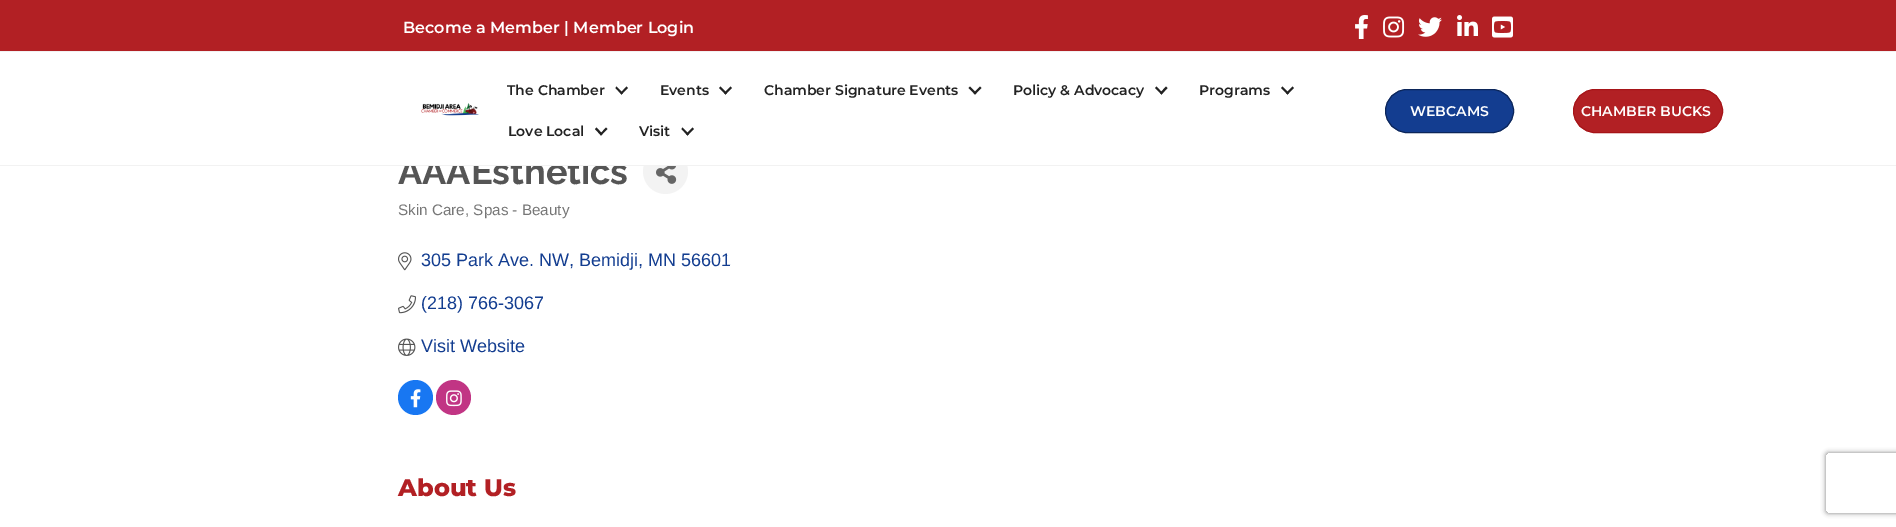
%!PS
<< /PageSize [1896 527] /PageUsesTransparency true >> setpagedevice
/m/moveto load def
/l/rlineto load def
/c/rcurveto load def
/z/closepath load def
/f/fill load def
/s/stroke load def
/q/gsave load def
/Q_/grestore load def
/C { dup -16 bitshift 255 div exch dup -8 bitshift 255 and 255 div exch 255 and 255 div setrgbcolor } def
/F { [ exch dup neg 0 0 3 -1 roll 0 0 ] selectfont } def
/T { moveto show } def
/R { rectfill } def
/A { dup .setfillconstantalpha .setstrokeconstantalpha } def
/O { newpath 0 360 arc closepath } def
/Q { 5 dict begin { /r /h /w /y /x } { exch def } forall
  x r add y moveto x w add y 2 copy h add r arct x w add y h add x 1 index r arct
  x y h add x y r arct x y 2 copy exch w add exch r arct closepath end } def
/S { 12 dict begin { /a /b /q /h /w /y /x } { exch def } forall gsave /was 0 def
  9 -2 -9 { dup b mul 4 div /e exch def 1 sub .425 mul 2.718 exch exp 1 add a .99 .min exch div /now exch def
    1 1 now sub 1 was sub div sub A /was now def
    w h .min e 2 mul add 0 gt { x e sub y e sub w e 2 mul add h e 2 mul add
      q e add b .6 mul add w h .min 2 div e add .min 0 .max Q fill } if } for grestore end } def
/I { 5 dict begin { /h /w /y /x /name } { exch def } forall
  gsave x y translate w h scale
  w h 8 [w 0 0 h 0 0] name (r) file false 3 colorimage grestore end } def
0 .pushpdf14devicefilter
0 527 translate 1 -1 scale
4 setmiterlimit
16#B22024 C
0 0 1896 527 R
/Montserrat-SemiBold 16 F
16#FFFFFF C
(Become a Member | Member Login) 403 33 T
(1.rgb) 1355 15 13 24 I
(2.rgb) 1383 16 22 22 I
(3.rgb) 1418 17 24 20 I
(4.rgb) 1457 15 21 21 I
(5.rgb) 1492 16 21 22 I
0 166 1896 361 R
/Raleway-Thin 36 F
16#555555 C
(AAAEsthetics) 398 184 T
16#F3F3F3 C
665.5 171.5 22.5 O f
16#FFFFFF C
0 52 1896 113 R
16#F2F2F2 C
0 51 1896 1 R
0 165 1896 1 R
(6.rgb) 421 103 58 13 I
/Montserrat-SemiBold 14 F
16#222222 C
(The Chamber) 507 95 T
626.5 86.5 m 1.5 1.5 l -6.5 6.5 l -1 -1.5 l z f
616.5 86.5 m 6.5 6.5 l -1.5 1.5 l -6 -6.5 l z f
(Events) 660 95 T
730.5 86.5 m 1.5 1.5 l -6.5 6.5 l -1.5 -1.5 l z f
720.5 86.5 m 6.5 6.5 l -1.5 1.5 l -6.5 -6.5 l z f
(Chamber Signature Events) 764 95 T
980 86.5 m 1.5 1.5 l -6.5 6.5 l -1.5 -1.5 l z f
970 86.5 m 6.5 6.5 l -1.5 1.5 l -6.5 -6.5 l z f
(Policy & Advocacy) 1013 95 T
1166 86.5 m 1.5 1.5 l -6 6.5 l -1.5 -1.5 l z f
1156.5 86.5 m 6 6.5 l -1 1.5 l -6.5 -6.5 l z f
(Programs) 1199 95 T
1292.5 86.5 m 1.5 1.5 l -6.5 6.5 l -1.5 -1.5 l z f
1282.5 86.5 m 6.5 6.5 l -1.5 1.5 l -6.5 -6.5 l z f
(Love Local) 508 136 T
606 127.5 m 1.5 1.5 l -6.5 6.5 l -1 -1.5 l z f
596.5 127.5 m 6 6.5 l -1.5 1.5 l -6 -6.5 l z f
(Visit) 639 136 T
692.5 127.5 m 1.5 1.5 l -6.5 6.5 l -1.5 -1.5 l z f
682.5 127.5 m 6.5 6.5 l -1.5 1.5 l -6 -6.5 l z f
16#133D90 C
1385.5 89.5 128 43 21.5 Q q f Q_
16#0C265A C
s
16#FFFFFF C
(WEBCAMS) 1410 116 T
16#B22024 C
1573.5 89.5 149 43 21.5 Q q f Q_
16#A61418 C
s
16#FFFFFF C
(CHAMBER BUCKS) 1581 116 T
(7.rgb) 656 166 21 18 I
/LiberationSans-Regular 15.25 F
16#777777 C
(Skin Care, Spas - Beauty) 398 215 T
(8.rgb) 398 252 14 19 I
/LiberationSans-Regular 18 F
16#133D90 C
(305 Park Ave. NW, Bemidji, MN 56601) 421 266 T
(9.rgb) 398 295 18 19 I
(\(218\) 766-3067) 421 309 T
(10.rgb) 398 338 18 18 I
(Visit Website) 421 352 T
16#1877F2 C
415.5 397.5 17.5 O f
(11.rgb) 410 389 11 19 I
16#C13584 C
453.5 397.5 17.5 O f
(12.rgb) 446 390 16 17 I
/Montserrat-ExtraBold 24 F
16#B22024 C
(About Us) 398 496 T
q
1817 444 m 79 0 l 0 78 l -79 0 l z 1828 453 m 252 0 l 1 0 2 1 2 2 c 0 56 l 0 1 -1 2 -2 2 c -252 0 l -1 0 -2 -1 -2 -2 c 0 -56 l 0 -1 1 -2 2 -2 c z eoclip newpath
16#808080 C
1826 453 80 60 2 2.5 1 S
Q_
.poppdf14devicefilter showpage
